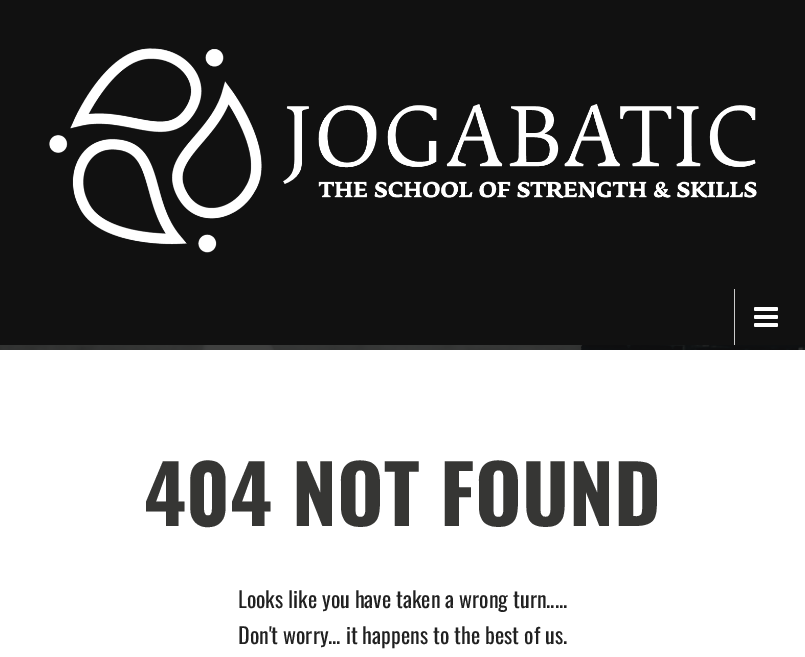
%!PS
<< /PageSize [805 657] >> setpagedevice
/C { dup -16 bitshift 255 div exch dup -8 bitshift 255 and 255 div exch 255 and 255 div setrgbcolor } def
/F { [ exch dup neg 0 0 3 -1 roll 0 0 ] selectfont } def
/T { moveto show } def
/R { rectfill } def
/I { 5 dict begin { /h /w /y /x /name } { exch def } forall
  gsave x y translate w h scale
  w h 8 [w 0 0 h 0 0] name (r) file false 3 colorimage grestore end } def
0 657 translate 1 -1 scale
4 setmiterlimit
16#FFFFFF C
0 0 805 657 R
16#111111 C
0 0 805 345 R
(1.rgb) 49 48 708 205 I
16#CCCCCC C
734 289 1 56 R
(2.rgb) 754 307 24 20 I
(3.rgb) 0 345 805 5 I
/Oswald-Bold 80 F
16#363634 C
(404 NOT FOUND) 144 526 T
/Oswald-Regular 22 F
16#212121 C
(Looks like you have taken a wrong turn.....) 238 608 T
(Don't worry... it happens to the best of us.) 238 644 T
showpage
